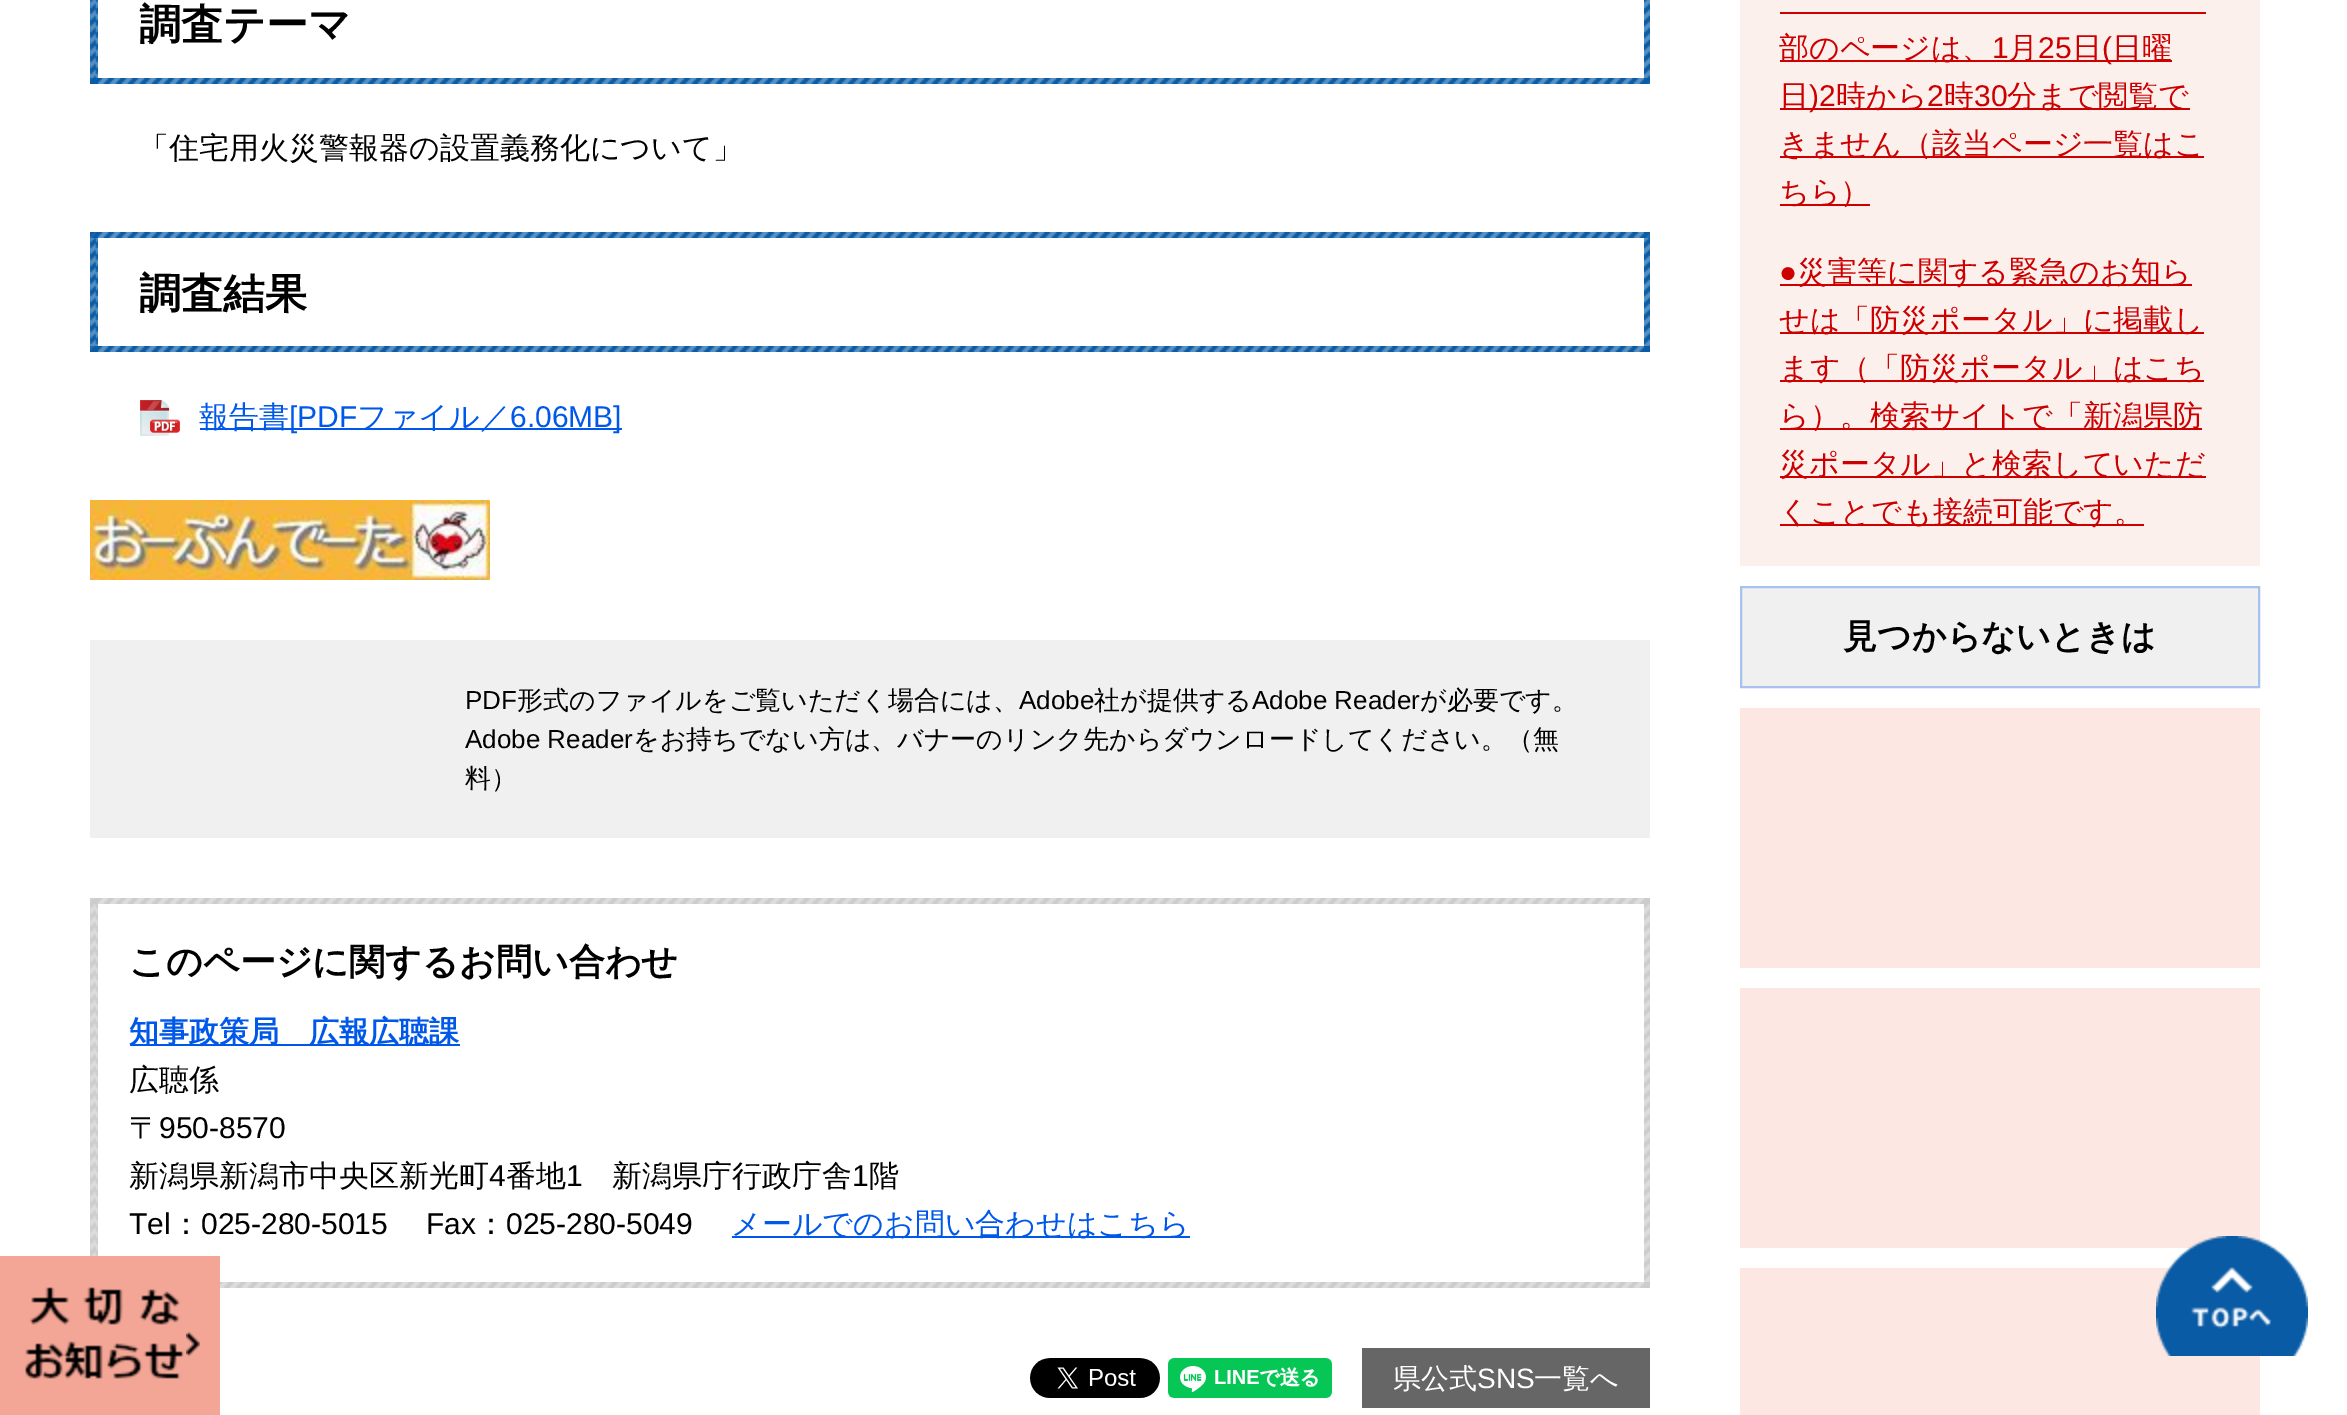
%!PS
<< /PageSize [2347 1415] >> setpagedevice
/m/moveto load def
/l/rlineto load def
/z/closepath load def
/f/fill load def
/s/stroke load def
/q/gsave load def
/Q_/grestore load def
/w/setlinewidth load def
/C { dup -16 bitshift 255 div exch dup -8 bitshift 255 and 255 div exch 255 and 255 div setrgbcolor } def
/F { [ exch dup neg 0 0 3 -1 roll 0 0 ] selectfont } def
/T { moveto show } def
/R { rectfill } def
/I { 5 dict begin { /h /w /y /x /name } { exch def } forall
  gsave x y translate w h scale
  w h 8 [w 0 0 h 0 0] name (r) file false 3 colorimage grestore end } def
0 1415 translate 1 -1 scale
4 setmiterlimit
16#FFFFFF C
0 0 2347 1415 R
(1.rgb) 90 0 1560 84 I
/WenQuanYiZenHei-Bold 42 F
16#000000 C
(調査テーマ) 139 39 T
/WenQuanYiZenHei-Medium 30 F
(「住宅用火災警報器の設置義務化について」) 139 158 T
(2.rgb) 90 232 1560 120 I
/WenQuanYiZenHei-Bold 42 F
(調査結果) 139 308 T
(3.rgb) 140 400 40 36 I
16#0058EA C
200 428 422 2 R
/WenQuanYiZenHei-Medium 30 F
(報告書) 199 427 T
/LiberationSans-Regular 30 F
([PDF) 289 427 T
/WenQuanYiZenHei-Medium 30 F
(ファイル／) 357 427 T
/LiberationSans-Regular 30 F
(6.06MB]) 510 427 T
(4.rgb) 90 500 400 80 I
16#F0F0F0 C
90 640 1560 198 R
/LiberationSans-Regular 26 F
16#000000 C
(PDF) 465 709 T
/WenQuanYiZenHei-Medium 26 F
(形式のファイルをご覧いただく場合には、) 517 709 T
/LiberationSans-Regular 26 F
(Adobe) 1019 709 T
/WenQuanYiZenHei-Medium 26 F
(社が提供する) 1094 709 T
/LiberationSans-Regular 26 F
(Adobe Reader) 1252 709 T
/WenQuanYiZenHei-Medium 26 F
(が必要です。) 1420 709 T
/LiberationSans-Regular 26 F
(Adobe Reader) 465 748 T
/WenQuanYiZenHei-Medium 26 F
(をお持ちでない方は、バナーのリンク先からダウンロードしてください。（無) 633 748 T
(料）) 465 787 T
(5.rgb) 90 898 1560 390 I
/WenQuanYiZenHei-Bold 36 F
(このページに関するお問い合わせ) 129 974 T
16#0058EA C
130 1044 330 2 R
/WenQuanYiZenHei-Bold 30 F
(知事政策局　広報広聴課) 129 1042 T
/WenQuanYiZenHei-Medium 30 F
16#000000 C
(広聴係) 129 1090 T
(〒) 129 1138 T
/LiberationSans-Regular 30 F
(950-8570) 159 1138 T
/WenQuanYiZenHei-Medium 30 F
(新潟県新潟市中央区新光町) 129 1186 T
/LiberationSans-Regular 30 F
(4) 489 1186 T
/WenQuanYiZenHei-Medium 30 F
(番地) 506 1186 T
/LiberationSans-Regular 30 F
(1) 566 1186 T
/WenQuanYiZenHei-Medium 30 F
(新潟県庁行政庁舎) 612 1186 T
/LiberationSans-Regular 30 F
(1) 852 1186 T
/WenQuanYiZenHei-Medium 30 F
(階) 869 1186 T
/LiberationSans-Regular 30 F
(Tel) 129 1234 T
/WenQuanYiZenHei-Medium 30 F
(：) 171 1234 T
/LiberationSans-Regular 30 F
(025-280-5015) 201 1234 T
(Fax) 426 1234 T
/WenQuanYiZenHei-Medium 30 F
(：) 476 1234 T
/LiberationSans-Regular 30 F
(025-280-5049) 506 1234 T
16#0058EA C
732 1236 458 2 R
/WenQuanYiZenHei-Medium 30 F
(メールでのお問い合わせはこちら) 731 1234 T
(6.rgb) 1030 1358 130 40 I
(7.rgb) 1168 1358 164 40 I
16#666666 C
1362 1348 288 60 R
/WenQuanYiZenHei-Medium 28 F
16#FFFFFF C
(県公式) 1393 1388 T
/LiberationSans-Regular 28 F
(SNS) 1477 1388 T
/WenQuanYiZenHei-Medium 28 F
(一覧へ) 1534 1388 T
16#FCF0ED C
1740 0 520 566 R
16#CC0000 C
1780 60 392 2 R
/WenQuanYiZenHei-Medium 30 F
(部のページは、) 1779 58 T
1780 12 426 2 R
/LiberationSans-Regular 30 F
(1) 1992 58 T
/WenQuanYiZenHei-Medium 30 F
(月) 2008 58 T
/LiberationSans-Regular 30 F
(25) 2038 58 T
/WenQuanYiZenHei-Medium 30 F
(日) 2072 58 T
/LiberationSans-Regular 30 F
(\() 2102 58 T
/WenQuanYiZenHei-Medium 30 F
(日曜) 2112 58 T
1780 108 410 2 R
(日) 1779 106 T
/LiberationSans-Regular 30 F
(\)2) 1809 106 T
/WenQuanYiZenHei-Medium 30 F
(時から) 1836 106 T
/LiberationSans-Regular 30 F
(2) 1927 106 T
/WenQuanYiZenHei-Medium 30 F
(時) 1944 106 T
/LiberationSans-Regular 30 F
(30) 1974 106 T
/WenQuanYiZenHei-Medium 30 F
(分まで閲覧で) 2007 106 T
1780 156 424 2 R
(きません（該当ページ一覧はこ) 1779 154 T
1780 204 90 2 R
(ちら）) 1779 202 T
/LiberationSans-Regular 30 F
(●) 1779 282 T
1780 284 412 2 R
/WenQuanYiZenHei-Medium 30 F
(災害等に関する緊急のお知ら) 1797 282 T
1780 332 424 2 R
(せは「防災ポータル」に掲載し) 1779 330 T
1780 380 424 2 R
(ます（「防災ポータル」はこち) 1779 378 T
1780 428 422 2 R
(ら）。検索サイトで「新潟県防) 1779 426 T
1780 476 426 2 R
(災ポータル」と検索していただ) 1779 474 T
1780 524 364 2 R
(くことでも接続可能です。) 1779 522 T
16#F0F0F0 C
1741 587 m 518 0 l 0 100 l -518 0 l z q f Q_
16#A8C2EE C
2 w
s
/WenQuanYiZenHei-Bold 34 F
16#000000 C
(見つからないときは) 1843 648 T
16#FCE7E2 C
1740 708 520 260 R
1740 988 520 260 R
1740 1268 520 147 R
(8.rgb) 0 1256 220 159 I
(9.rgb) 186 1332 14 24 I
(10.rgb) 2156 1236 152 120 I
showpage
